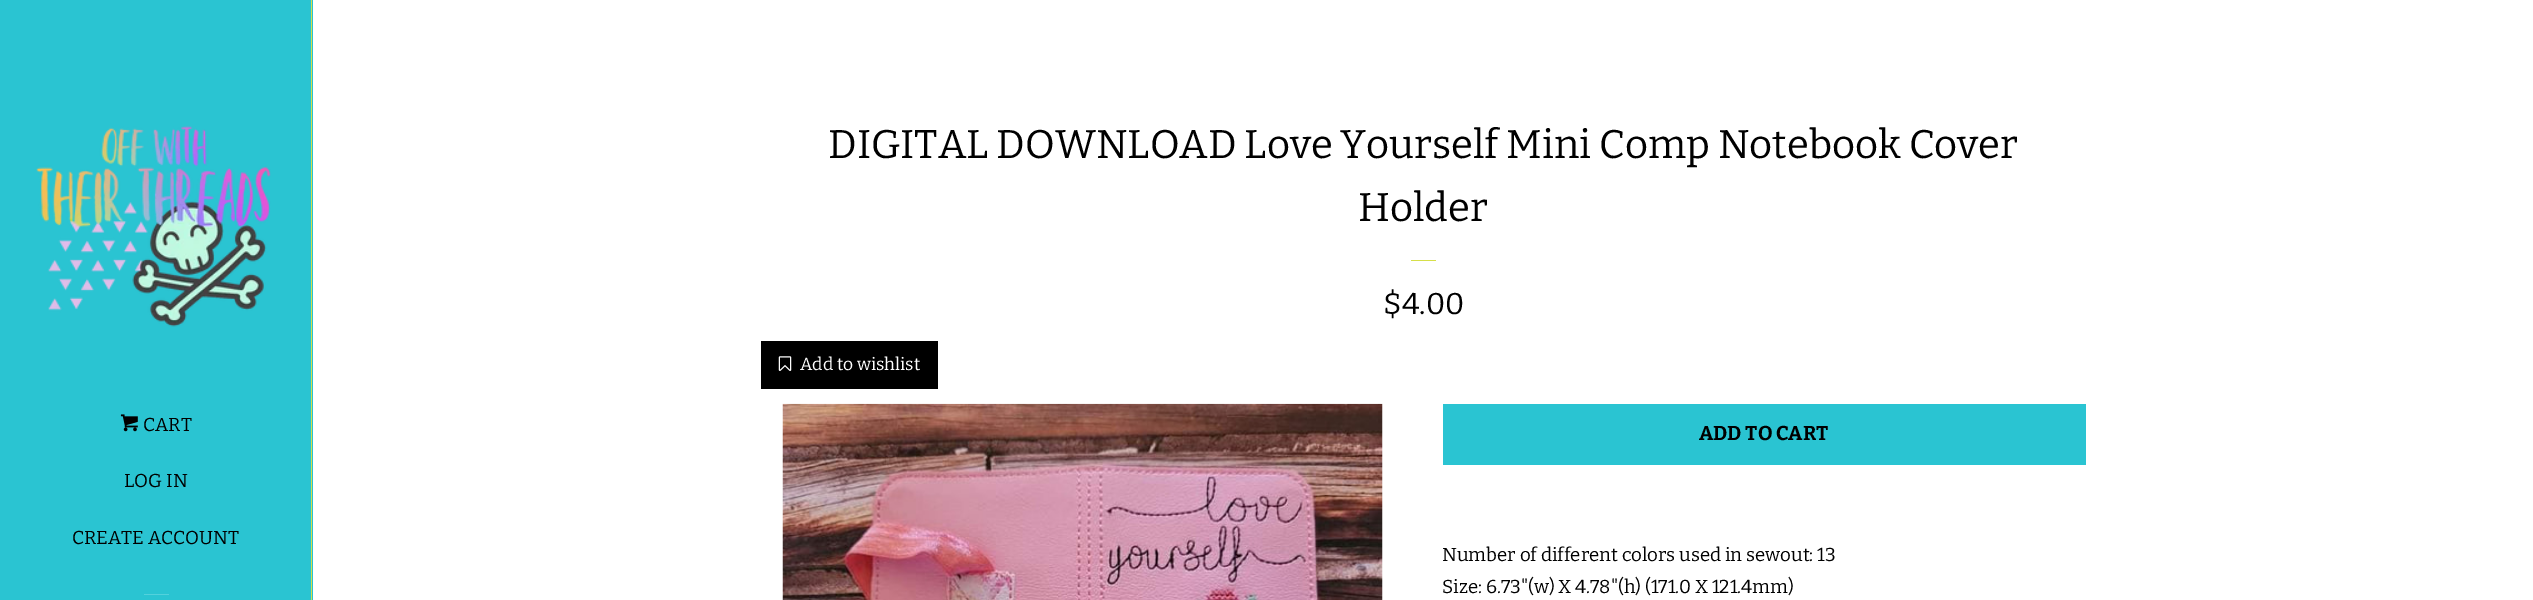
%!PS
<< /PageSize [2533 600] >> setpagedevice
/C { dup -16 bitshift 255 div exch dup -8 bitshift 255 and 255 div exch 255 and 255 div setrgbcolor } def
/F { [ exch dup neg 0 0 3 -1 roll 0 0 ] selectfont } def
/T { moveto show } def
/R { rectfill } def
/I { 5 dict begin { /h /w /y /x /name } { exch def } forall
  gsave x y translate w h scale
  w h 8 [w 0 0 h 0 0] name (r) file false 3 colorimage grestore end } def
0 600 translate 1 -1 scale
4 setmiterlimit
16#2AC4D2 C
0 0 2533 600 R
16#D6DF49 C
311 0 1 600 R
(1.rgb) 36 126 235 201 I
(2.rgb) 120 414 18 18 I
/Bitter-Regular 18.75 F
16#000000 C
(CART) 143 431 T
(LOG IN) 124 487 T
(CREATE ACCOUNT) 72 544 T
16#53D1DC C
144 594 25 1 R
16#FFFFFF C
313 0 2220 600 R
/Bitter-Regular 40 F
16#000000 C
(DIGITAL DOWNLOAD Love Yourself Mini Comp Notebook Cover) 828 158 T
(Holder) 1358 221 T
16#D6DF49 C
1411 260 25 1 R
/Bitter-Regular 30 F
16#000000 C
($4.00) 1383 314 T
761 341 177 48 R
(3.rgb) 778 356 14 15 I
/Bitter-Regular 17.5 F
16#FFFFFF C
(Add to wishlist) 800 370 T
(4.rgb) 782 403 601 197 I
16#2AC4D2 C
1443 404 643 61 R
/Bitter-Bold 20 F
16#000000 C
(ADD TO CART) 1699 440 T
/Bitter-Regular 18.75 F
(Number of different colors used in sewout: 13) 1442 561 T
(Size: 6.73"\(w\) X 4.78"\(h\) \(171.0 X 121.4mm\)) 1442 593 T
showpage
